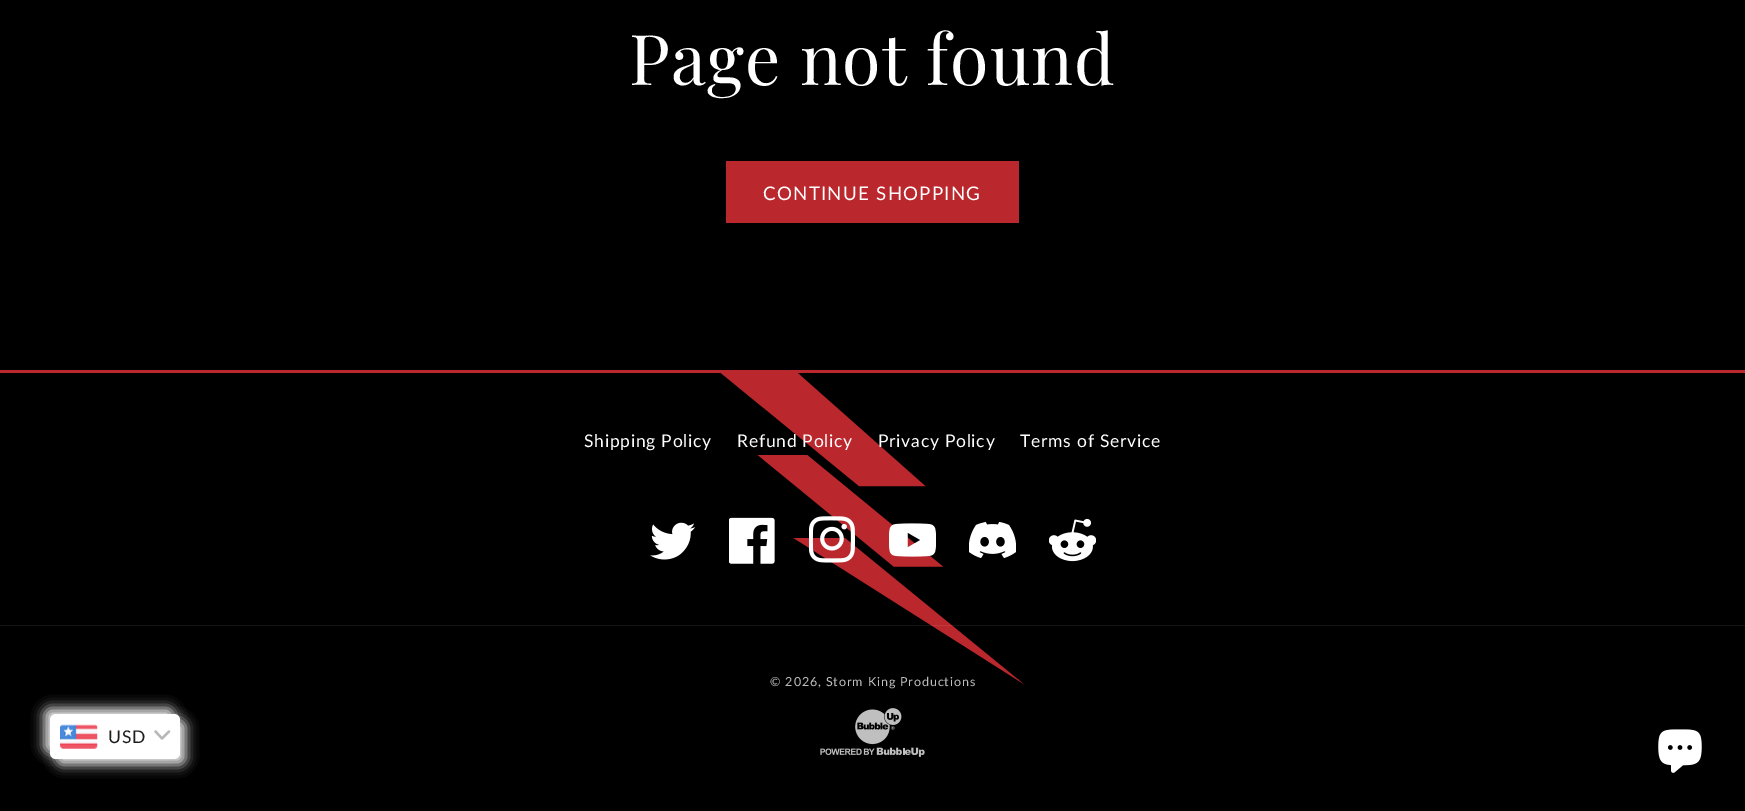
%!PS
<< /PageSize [1745 811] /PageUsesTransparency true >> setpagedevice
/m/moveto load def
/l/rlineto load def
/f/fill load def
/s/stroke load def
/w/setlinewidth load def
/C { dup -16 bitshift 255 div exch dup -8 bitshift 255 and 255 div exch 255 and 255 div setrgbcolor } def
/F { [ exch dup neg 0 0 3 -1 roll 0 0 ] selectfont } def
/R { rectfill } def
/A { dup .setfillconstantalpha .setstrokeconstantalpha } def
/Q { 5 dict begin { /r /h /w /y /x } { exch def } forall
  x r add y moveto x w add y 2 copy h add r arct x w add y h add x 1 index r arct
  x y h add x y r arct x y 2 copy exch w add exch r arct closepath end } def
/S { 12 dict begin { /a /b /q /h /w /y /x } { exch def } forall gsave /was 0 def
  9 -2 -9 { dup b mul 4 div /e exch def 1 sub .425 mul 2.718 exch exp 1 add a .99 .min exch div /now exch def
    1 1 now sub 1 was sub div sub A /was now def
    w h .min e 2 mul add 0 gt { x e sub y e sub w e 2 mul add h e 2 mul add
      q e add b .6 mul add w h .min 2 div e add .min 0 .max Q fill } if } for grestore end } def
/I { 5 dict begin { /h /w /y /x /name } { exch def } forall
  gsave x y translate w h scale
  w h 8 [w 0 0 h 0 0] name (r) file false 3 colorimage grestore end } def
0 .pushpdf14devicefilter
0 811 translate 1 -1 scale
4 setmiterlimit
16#000000 C
0 0 1745 811 R
/PlayfairDisplay-Regular 70 F
16#FFFFFF C
629 85 m 1 0 (Page not found) ashow
16#BA272D C
726 161 293 62 R
/Lato-Regular 18.75 F
16#FFFFFF C
763 200 m 1.25 0 (CONTINUE SHOPPING) ashow
(1.rgb) 720 373 305 312 I
16#BA272D C
0 370 1745 3 R
/Lato-Regular 17.5 F
16#FFFFFF C
584 447 m .75 0 (Shipping Policy) ashow
737 447 m .75 0 (Refund Policy) ashow
878 447 m .75 0 (Privacy Policy) ashow
1020 447 m .75 0 (Terms of Service) ashow
(2.rgb) 650 522 46 38 I
(3.rgb) 729 517 46 47 I
(4.rgb) 809 516 47 47 I
(5.rgb) 889 523 47 34 I
(6.rgb) 969 521 47 37 I
(7.rgb) 1049 518 47 44 I
0.08 A
0 625 1745 1 R
/Lato-Regular 12.5 F
1 A
16#BFBFBF C
770 686 m .9 0 (© 2026, Storm King Productions) ashow
(8.rgb) 820 708 105 49 I
16#E8E8E8 C
44 708 130 45 6 6 1 S
56 720 130 45 6 6 1 S
16#FFFFFF C
50 714 130 45 6 Q f
(9.rgb) 60 724 38 25 I
/Lato-Regular 17.5 F
16#1E1E1E C
108 743 m .75 0 (USD) ashow
16#B7B7B7 C
2.3 w
1 setlinecap
1 setlinejoin
155.5 731.5 m 6.5 7 l 7 -7 l s
(10.rgb) 1658 729 44 44 I
.poppdf14devicefilter showpage
